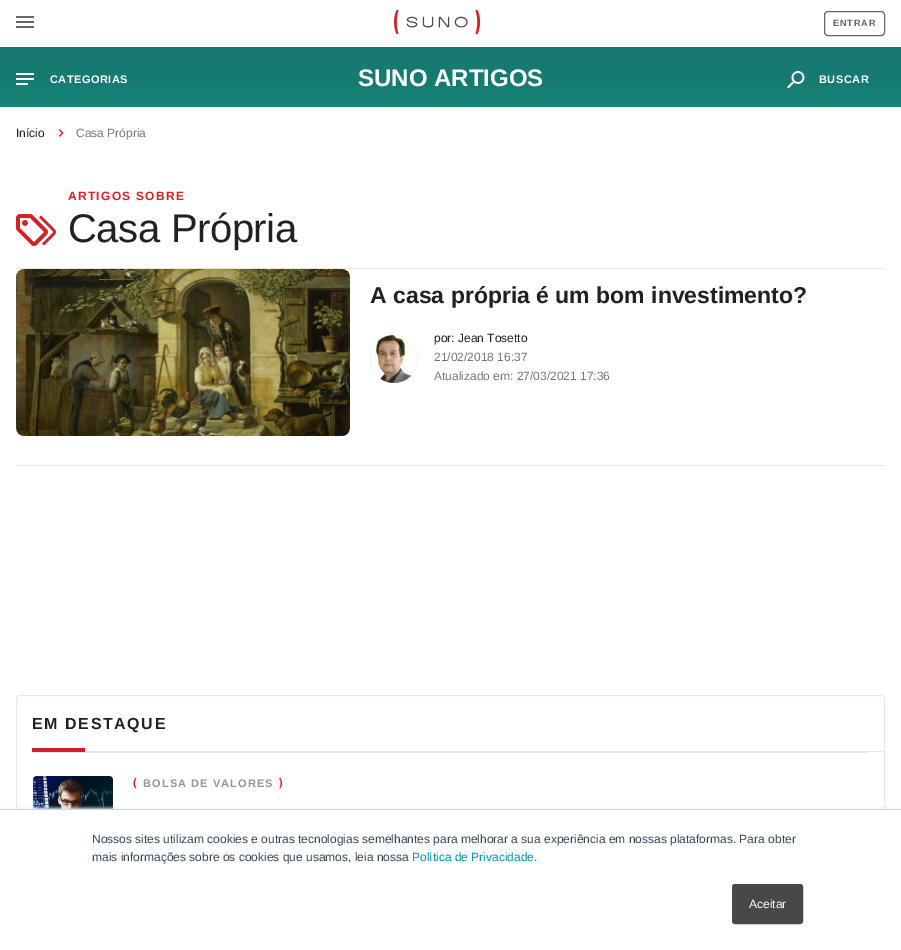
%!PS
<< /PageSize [901 950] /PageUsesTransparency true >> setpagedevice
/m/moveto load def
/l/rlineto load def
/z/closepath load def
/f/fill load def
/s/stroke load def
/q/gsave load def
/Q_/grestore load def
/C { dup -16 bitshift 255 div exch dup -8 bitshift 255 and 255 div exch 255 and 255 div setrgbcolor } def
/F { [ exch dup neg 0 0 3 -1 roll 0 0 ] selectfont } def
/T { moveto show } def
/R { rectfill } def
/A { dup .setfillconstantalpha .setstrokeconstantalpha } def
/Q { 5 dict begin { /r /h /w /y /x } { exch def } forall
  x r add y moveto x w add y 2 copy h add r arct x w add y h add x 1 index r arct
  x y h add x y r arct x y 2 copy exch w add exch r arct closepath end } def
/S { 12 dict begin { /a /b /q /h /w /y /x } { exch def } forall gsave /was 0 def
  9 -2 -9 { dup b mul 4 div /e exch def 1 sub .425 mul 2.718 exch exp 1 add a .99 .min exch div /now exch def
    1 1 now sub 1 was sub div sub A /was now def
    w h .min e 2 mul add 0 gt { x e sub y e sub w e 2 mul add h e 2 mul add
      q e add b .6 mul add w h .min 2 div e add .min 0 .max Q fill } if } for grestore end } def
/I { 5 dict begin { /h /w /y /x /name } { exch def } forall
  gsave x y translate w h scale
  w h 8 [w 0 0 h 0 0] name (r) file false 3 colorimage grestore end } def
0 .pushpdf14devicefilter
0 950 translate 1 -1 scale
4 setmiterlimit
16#FFFFFF C
0 0 901 950 R
16#666666 C
16 16 18 2 R
16 21 18 2 R
16 26 18 2 R
(1.rgb) 394 10 86 24 I
824.5 11.5 60 24 3.5 Q s
/LiberationSans-Bold 9 F
833 26 m 1 0 (ENTRAR) ashow
q 0 47 m 901 0 l 0 60 l -901 0 l z clip newpath
<< /ShadingType 2 /ColorSpace /DeviceRGB /Coords [451 275 451 47] /Extend [true true] /Function << /FunctionType 3 /Domain [0 1] /Functions [<< /FunctionType 2 /Domain [0 1] /C0 [.082 .478 .435] /C1 [.106 .6 .545] /N 1 >> << /FunctionType 2 /Domain [0 1] /C0 [.106 .6 .545] /C1 [.082 .478 .435] /N 1 >> << /FunctionType 2 /Domain [0 1] /C0 [.082 .478 .435] /C1 [.082 .478 .435] /N 1 >>] /Bounds [.47 .87] /Encode [0 1 0 1 0 1] >> >> shfill Q_
(2.rgb) 16 73 18 12 I
/LiberationSans-Bold 11 F
16#FFFFFF C
50 83 m .5 0 (CATEGORIAS) ashow
/LiberationSans-Bold 24 F
(SUNO ARTIGOS) 358 86 T
(3.rgb) 787 71 18 18 I
/LiberationSans-Bold 11 F
819 83 m .5 0 (BUSCAR) ashow
/LiberationSans-Regular 12 F
16#212121 C
(Início) 16 137 T
(4.rgb) 58 129 6 8 I
16#767676 C
(Casa Própria) 76 137 T
(5.rgb) 16 214 40 32 I
16#E7E7E7 C
16 268 869 1 R
/LiberationSans-Bold 12 F
16#D42126 C
68 200 m 1.25 0 (ARTIGOS SOBRE) ashow
/LiberationSans-Regular 40 F
16#212121 C
68 242 m -.4 0 (Casa Própria) ashow
16#E7E7E7 C
16 465 869 1 R
(6.rgb) 16 269 334 167 I
/LiberationSans-Bold 23 F
16#212121 C
(A casa própria é um bom investimento?) 370 303 T
(7.rgb) 370 335 48 48 I
/LiberationSans-Regular 12 F
(por: Jean Tosetto) 434 342 T
16#767676 C
(21/02/2018 16:37) 434 361 T
(Atualizado em: 27/03/2021 17:36) 434 380 T
16#E7E7E7 C
16.5 695.5 868 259 3.5 Q s
/LiberationSans-Bold 16 F
16#212121 C
32 729 m 1.6 0 (EM DESTAQUE) ashow
16#D42126 C
32 748 53 4 R
16#E7E7E7 C
85 751 799 1 R
33 752 835 1 R
(8.rgb) 33 776 80 33 I
/LiberationSans-Bold 11 F
16#D42126 C
133 786 m 1.1 0 (\() ashow
16#959595 C
143 787 m 1.1 0 (BOLSA DE VALORES) ashow
16#D42126 C
279 786 m 1.1 0 (\)) ashow
16#EAF0F6 C
0 808 901 141 0 1.5 1 S
16#FFFFFF C
0 810 901 140 R
16#CBD6E2 C
0 809 901 1 R
/LiberationSans-Regular 12 F
16#33475B C
(Nossos sites utilizam cookies e outras tecnologias semelhantes para melhorar a sua experiência em nossas plataformas. Para obter) 92 843 T
(mais informações sobre os cookies que usamos, leia nossa) 92 861 T
16#0091AE C
(Política de Privacidade.) 412 861 T
16#484848 C
732.5 884.5 70 39 2.5 Q q f Q_
s
16#FFFFFF C
(Aceitar) 749 908 T
.poppdf14devicefilter showpage
